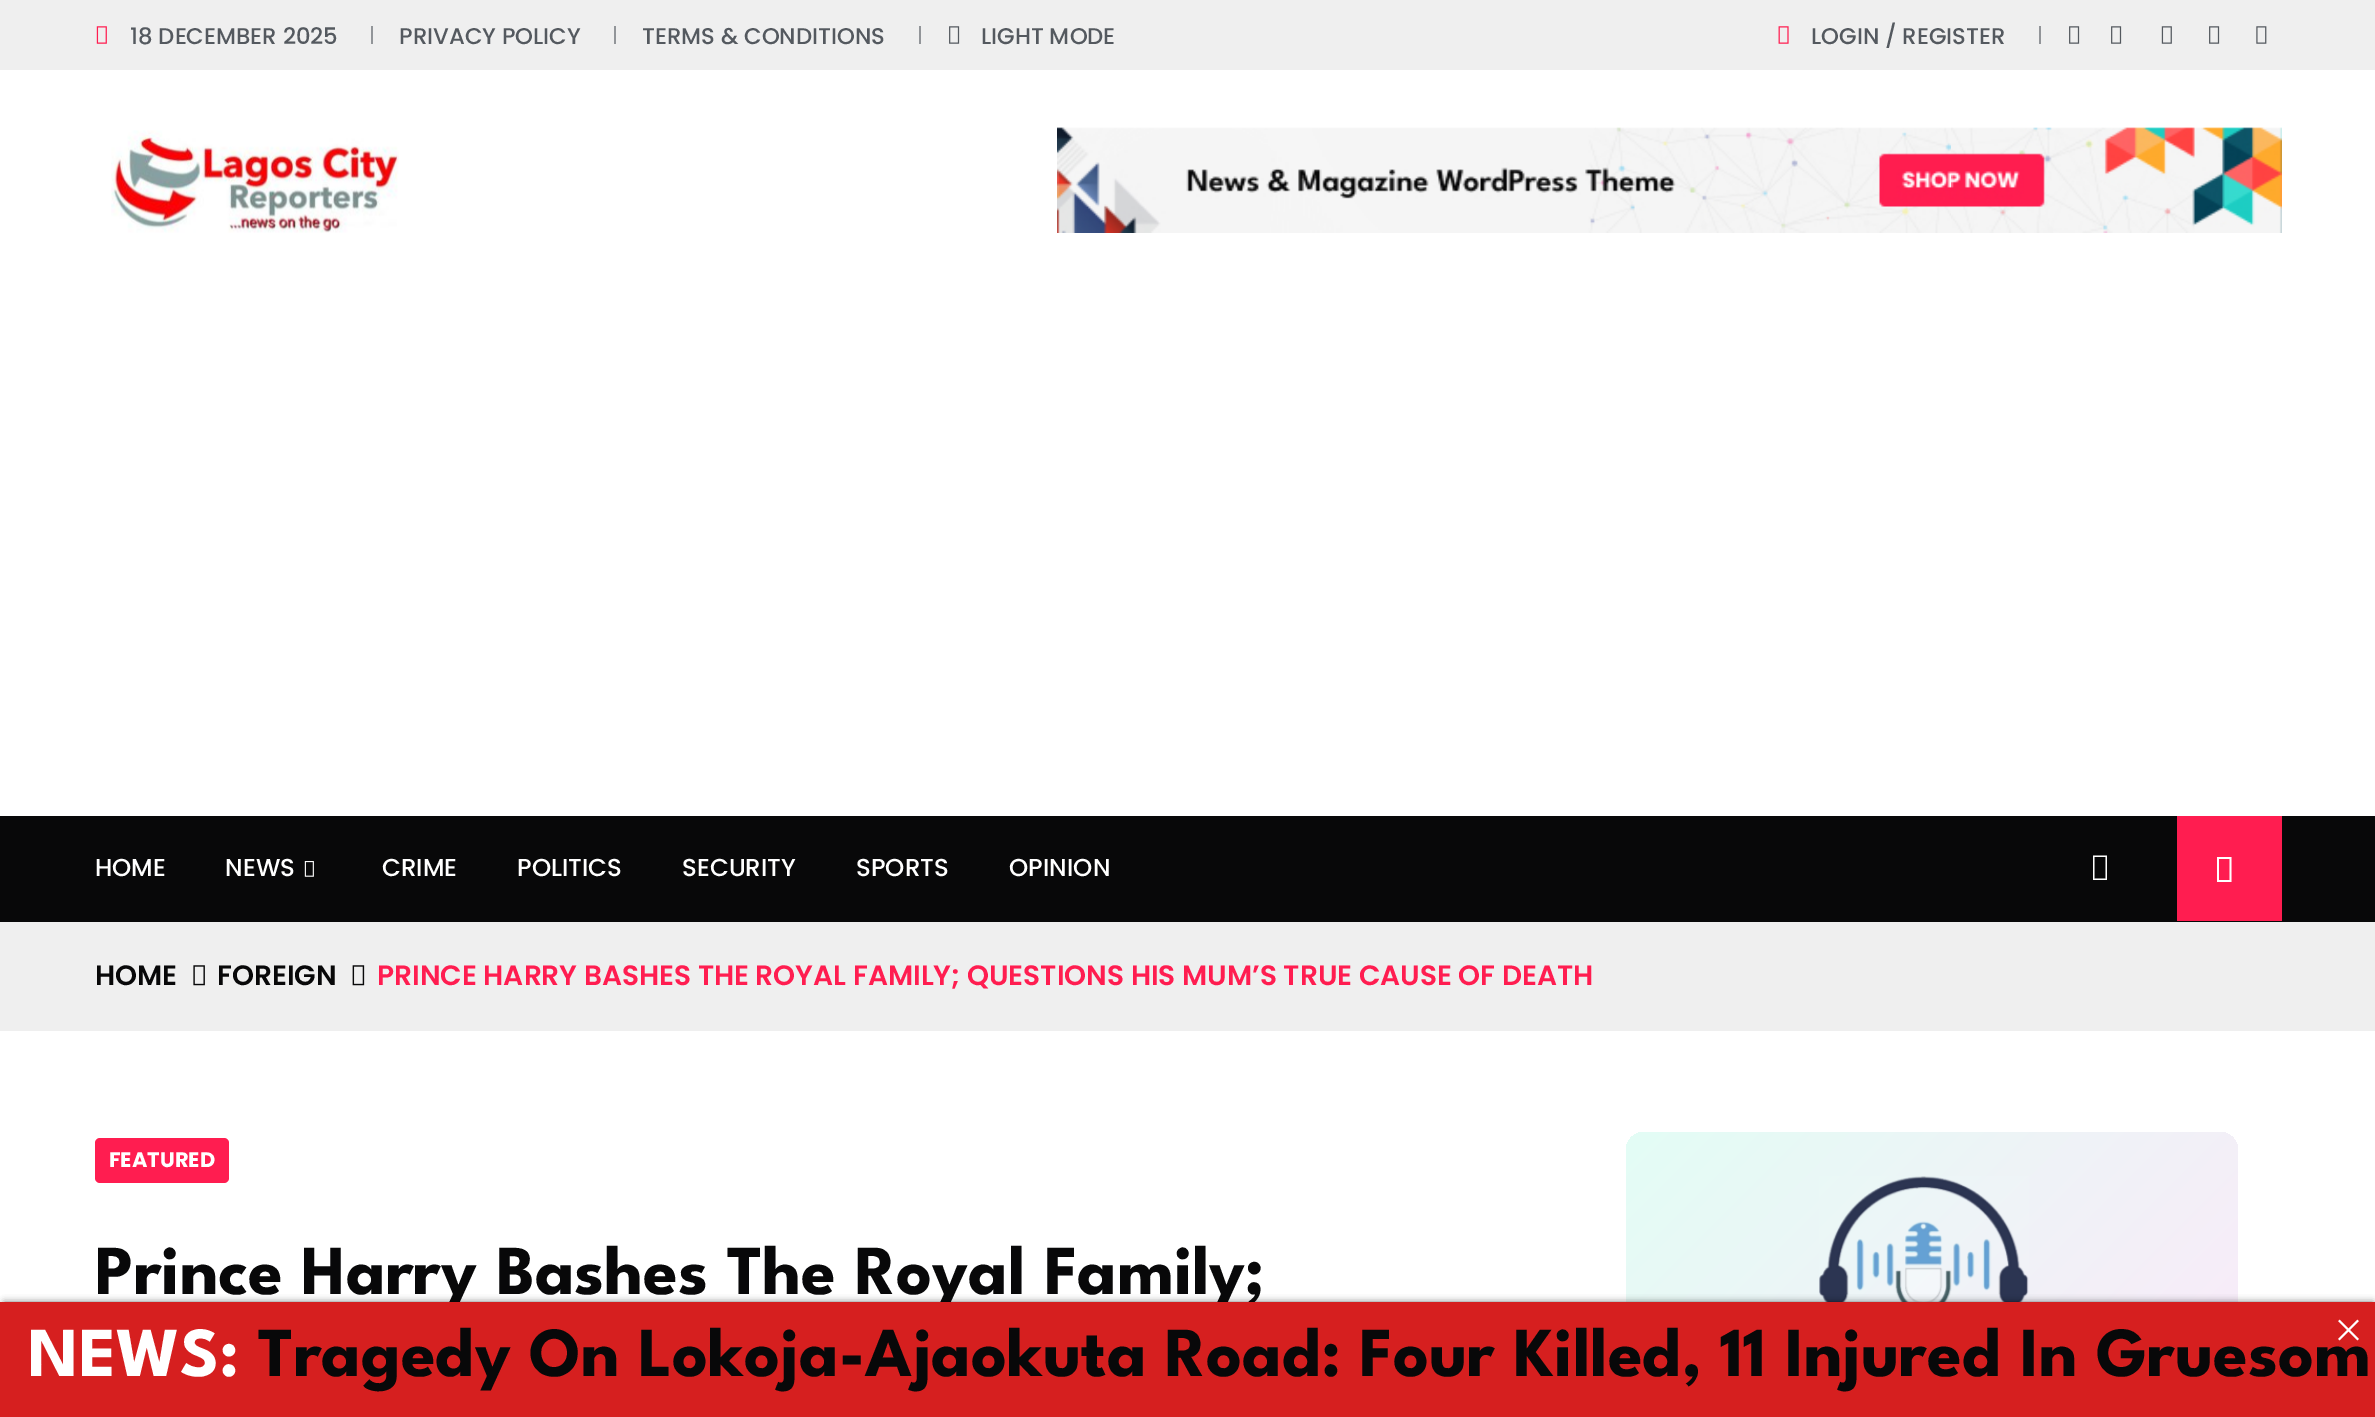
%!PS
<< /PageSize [2375 1417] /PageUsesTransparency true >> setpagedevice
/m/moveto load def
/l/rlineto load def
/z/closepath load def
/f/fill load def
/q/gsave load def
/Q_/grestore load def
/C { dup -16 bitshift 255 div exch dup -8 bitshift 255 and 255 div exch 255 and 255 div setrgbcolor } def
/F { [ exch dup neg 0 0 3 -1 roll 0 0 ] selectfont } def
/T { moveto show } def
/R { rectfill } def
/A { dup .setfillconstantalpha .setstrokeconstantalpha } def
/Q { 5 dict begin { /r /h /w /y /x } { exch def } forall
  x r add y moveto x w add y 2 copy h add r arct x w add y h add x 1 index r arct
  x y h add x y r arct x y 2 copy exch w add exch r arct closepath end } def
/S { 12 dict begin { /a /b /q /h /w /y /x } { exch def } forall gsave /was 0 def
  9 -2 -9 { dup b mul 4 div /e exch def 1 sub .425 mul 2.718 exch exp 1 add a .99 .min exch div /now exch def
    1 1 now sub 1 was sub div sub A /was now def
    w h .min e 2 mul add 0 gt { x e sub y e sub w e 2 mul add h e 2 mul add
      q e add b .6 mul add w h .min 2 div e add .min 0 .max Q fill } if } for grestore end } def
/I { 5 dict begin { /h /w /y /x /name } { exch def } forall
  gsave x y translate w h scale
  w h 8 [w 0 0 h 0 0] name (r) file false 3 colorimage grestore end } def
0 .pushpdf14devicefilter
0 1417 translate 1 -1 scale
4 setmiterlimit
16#FFFFFF C
0 0 2375 1417 R
16#EFEFEF C
0 0 2375 70 R
(1.rgb) 96 26 11 18 I
/Poppins-Medium 22.75 F
16#54595F C
(18 DECEMBER 2025) 130 44 T
16#929599 C
371 26 2 18 R
16#54595F C
(PRIVACY POLICY) 399 44 T
16#929599 C
614 26 2 18 R
16#54595F C
(TERMS & CONDITIONS) 642 44 T
16#929599 C
919 26 2 18 R
(2.rgb) 949 26 11 18 I
16#54595F C
(LIGHT MODE) 981 44 T
(3.rgb) 1778 26 11 18 I
(LOGIN / REGISTER) 1811 44 T
16#929599 C
2039 26 2 18 R
(2.rgb) 2069 26 11 18 I
(2.rgb) 2111 26 11 18 I
(4.rgb) 2161 26 11 18 I
(2.rgb) 2209 26 11 18 I
(5.rgb) 2256 26 11 18 I
(6.rgb) 111 130 288 103 I
(7.rgb) 1057 127 1225 106 I
16#080809 C
0 816 2375 106 R
/Poppins-Medium 24.5 F
16#FFFFFF C
(HOME) 95 876 T
(NEWS) 225 876 T
(8.rgb) 304 861 10 16 I
(CRIME) 382 876 T
(POLITICS) 517 876 T
(SECURITY) 682 876 T
(SPORTS) 856 876 T
(OPINION) 1009 876 T
2093 880 m 0 -24.5 l 14 0 l 0 24.5 l z 2094.5 878.5 m 11 0 l 0 -21.5 l -11 0 l z f
16#FF1D50 C
2177 816 105 105 R
16#FFFFFF C
2217 882 m 0 -25 l 14.5 0 l 0 25 l z 2219 880 m 10.5 0 l 0 -21 l -10.5 0 l z f
16#EFEFEF C
0 922 2375 109 R
/Poppins-SemiBold 28 F
16#080809 C
(HOME) 95 985 T
(9.rgb) 193 965 12 21 I
(FOREIGN) 217 985 T
(10.rgb) 352 965 13 21 I
16#FF1D50 C
(PRINCE HARRY BASHES THE ROYAL FAMILY; QUESTIONS HIS MUM’S TRUE CAUSE OF DEATH) 377 985 T
95 1138 134 45 5 Q f
/Poppins-Bold 21 F
16#FFFFFF C
(FEATURED) 109 1167 T
/LeagueSpartan-Bold 70 F
16#080809 C
(Prince Harry Bashes The Royal Family;) 95 1294 T
q 1626 1132 612 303 18 Q clip newpath
<< /ShadingType 2 /ColorSpace /DeviceRGB /Coords [1662 1096 2202 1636] /Extend [true true] /Function << /FunctionType 2 /Domain [0 1] /C0 [.89 .992 .961] /C1 [1 .902 .98] /N 1 >> >> shfill Q_
(11.rgb) 1819 1176 210 126 I
16#000000 C
4 1302 2369 109 0 3.5 .5 S
16#D61F1F C
0 1302 2375 115 R
16#080809 C
(Tragedy On Lokoja-Ajaokuta Road: Four Killed, 11 Injured In Gruesom) 258 1376 T
(12.rgb) 2338 1319 21 22 I
16#FFFFFF C
(NEWS:) 28 1376 T
.poppdf14devicefilter showpage
